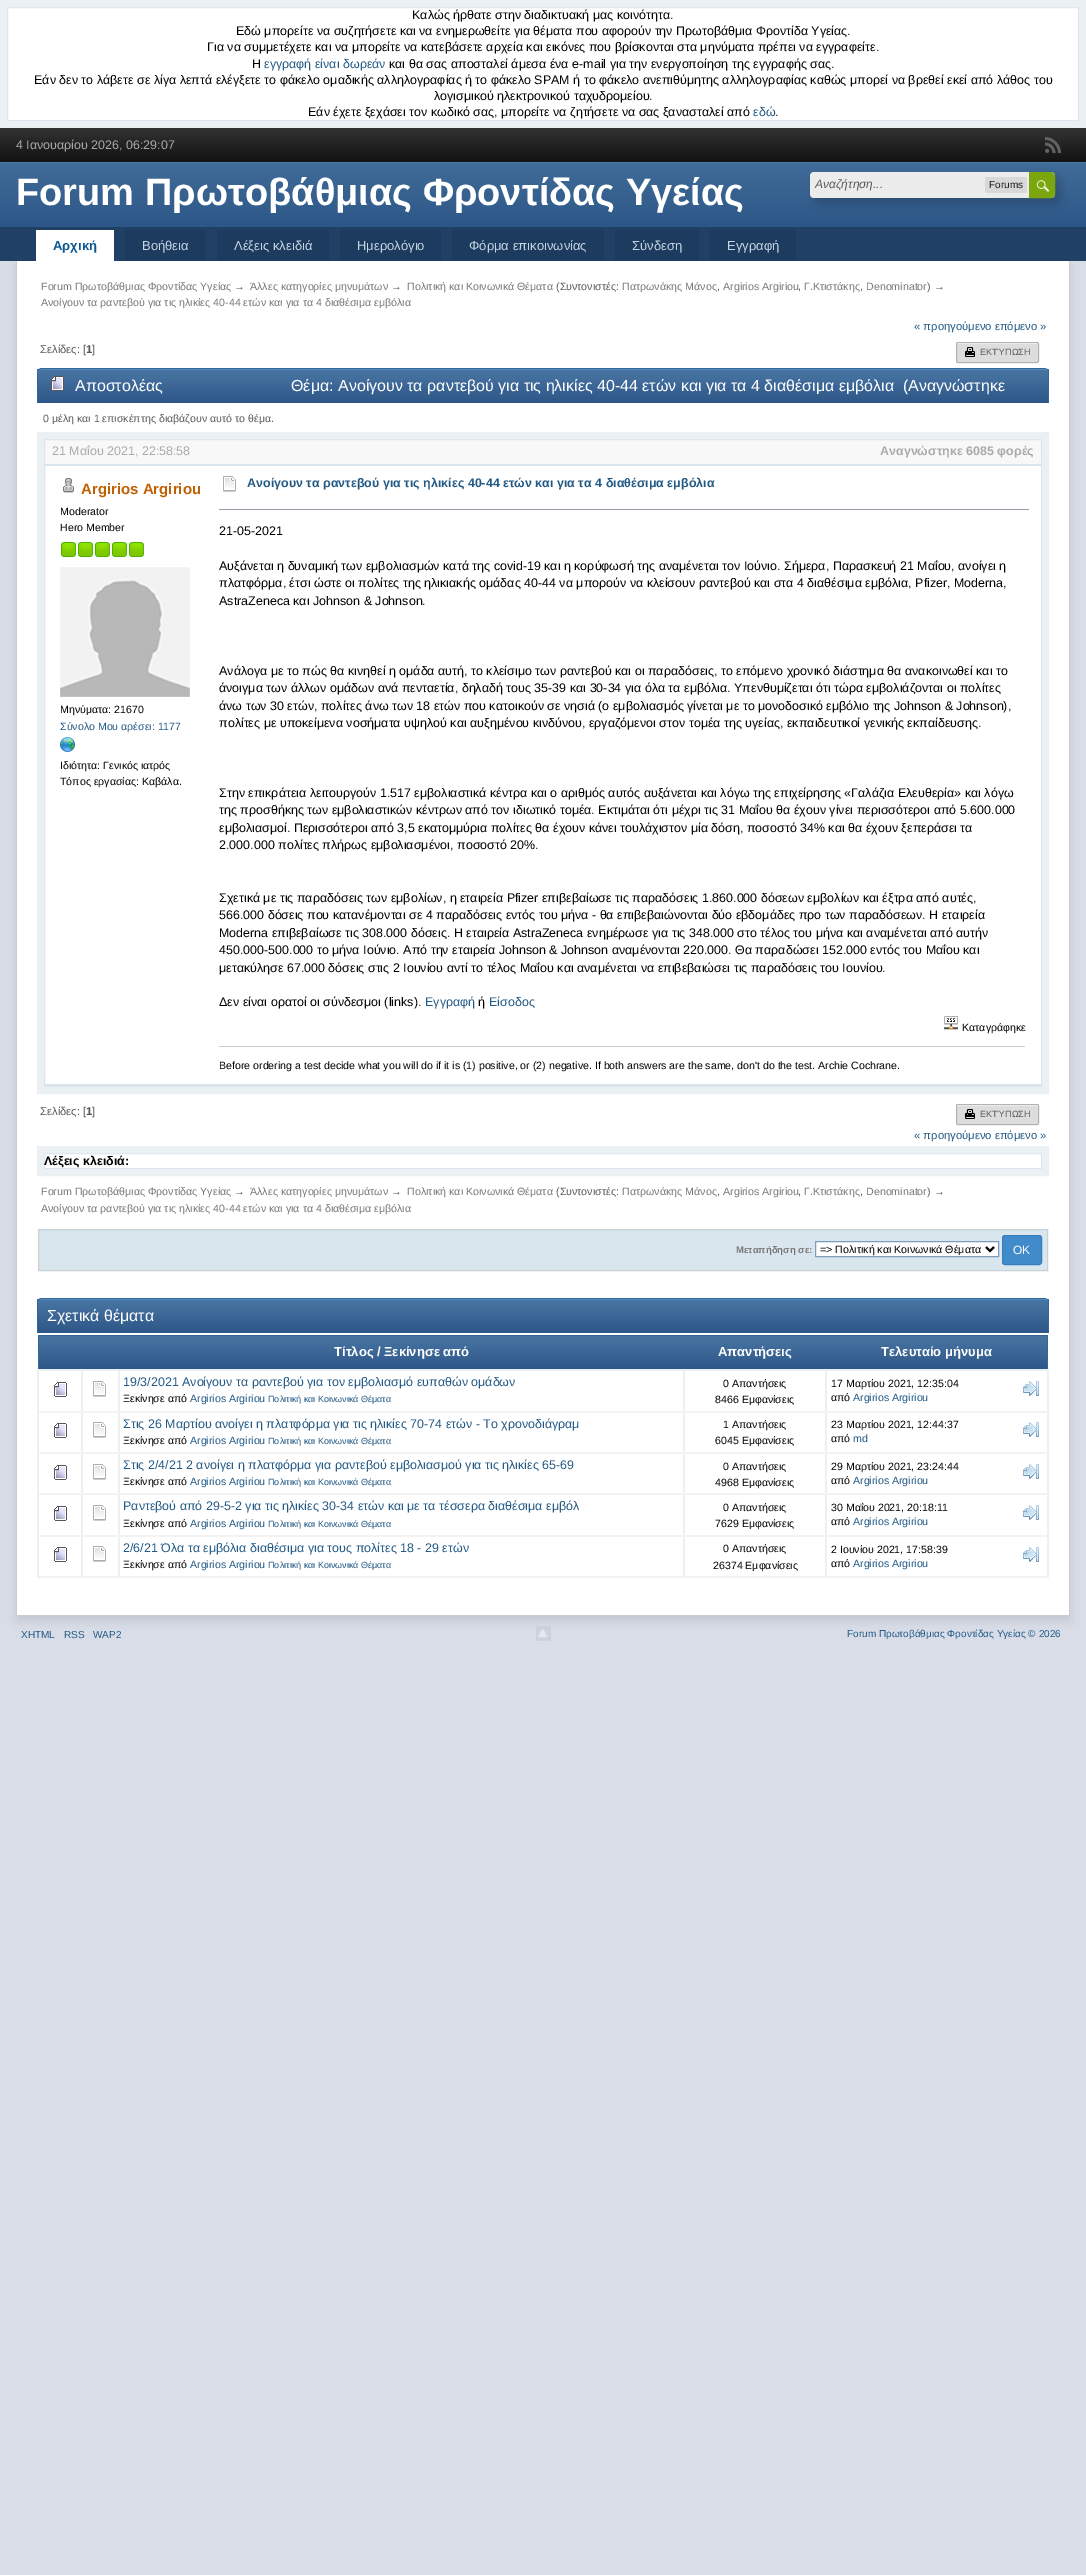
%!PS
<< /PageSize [1086 2575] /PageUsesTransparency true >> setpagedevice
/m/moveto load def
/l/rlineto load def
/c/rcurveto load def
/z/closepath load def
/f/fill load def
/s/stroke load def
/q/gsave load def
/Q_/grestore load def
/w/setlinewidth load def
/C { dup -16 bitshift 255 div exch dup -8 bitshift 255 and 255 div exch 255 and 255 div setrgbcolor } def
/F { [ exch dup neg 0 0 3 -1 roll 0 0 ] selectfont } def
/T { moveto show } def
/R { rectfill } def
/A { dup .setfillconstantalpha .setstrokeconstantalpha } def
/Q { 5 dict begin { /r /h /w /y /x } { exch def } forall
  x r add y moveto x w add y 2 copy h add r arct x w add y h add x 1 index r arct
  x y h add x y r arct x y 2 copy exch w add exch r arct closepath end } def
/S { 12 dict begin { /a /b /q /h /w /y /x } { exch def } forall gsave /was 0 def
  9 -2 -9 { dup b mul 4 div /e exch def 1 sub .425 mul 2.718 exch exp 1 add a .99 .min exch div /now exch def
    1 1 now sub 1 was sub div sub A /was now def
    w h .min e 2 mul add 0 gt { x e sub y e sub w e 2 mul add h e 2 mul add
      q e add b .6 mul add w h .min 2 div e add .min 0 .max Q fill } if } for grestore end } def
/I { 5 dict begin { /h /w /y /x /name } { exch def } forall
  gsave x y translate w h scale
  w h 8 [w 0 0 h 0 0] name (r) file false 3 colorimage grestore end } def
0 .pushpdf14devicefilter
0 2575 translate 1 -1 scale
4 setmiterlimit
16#D8DDE8 C
0 0 1086 2575 R
16#FFFFFF C
7.5 7.5 m 1071 0 l 0 113 l -1071 0 l z q f Q_
16#DBE4EF C
s
16#EBF0F3 C
7 w
3.5 3.5 1079 121 rectstroke
/LiberationSans-Regular 12.48 F
16#000000 C
(Καλώς ήρθατε στην διαδικτυακή μας κοινότητα.) 412 19 T
(Εδώ μπορείτε να συζητήσετε και να ενημερωθείτε για θέματα που αφορούν την Πρωτοβάθμια Φροντίδα Υγείας.) 236 35 T
(Για να συμμετέχετε και να μπορείτε να κατεβάσετε αρχεία και εικόνες που βρίσκονται στα μηνύματα πρέπει να εγγραφείτε.) 207 51 T
(Η) 252 68 T
16#225985 C
(εγγραφή είναι δωρεάν) 264 68 T
16#000000 C
(και θα σας αποσταλεί άμεσα ένα e-mail για την ενεργοποίηση της εγγραφής σας.) 389 68 T
(Εάν δεν το λάβετε σε λίγα λεπτά ελέγξετε το φάκελο ομαδικής αλληλογραφίας ή το φάκελο SPAM ή το φάκελο ανεπιθύμητης αλληλογραφίας καθώς μπορεί να βρεθεί εκεί από λάθος του) 34 84 T
(λογισμικού ηλεκτρονικού ταχυδρομείου.) 434 100 T
(Εάν έχετε ξεχάσει τον κωδικό σας, μπορείτε να ζητήσετε να σας ξανασταλεί από) 308 116 T
16#225985 C
(εδώ) 753 116 T
16#000000 C
(.) 775 116 T
q 0 128 m 1086 0 l 0 34 l -1086 0 l z clip newpath
<< /ShadingType 2 /ColorSpace /DeviceRGB /Coords [543 128 543 162] /Extend [true true] /Function << /FunctionType 3 /Domain [0 1] /Functions [<< /FunctionType 2 /Domain [0 1] /C0 [.196 .196 .196] /C1 [.188 .188 .188] /N 1 >> << /FunctionType 2 /Domain [0 1] /C0 [.188 .188 .188] /C1 [.102 .102 .102] /N 1 >> << /FunctionType 2 /Domain [0 1] /C0 [.102 .102 .102] /C1 [.075 .075 .075] /N 1 >>] /Bounds [.12 .74] /Encode [0 1 0 1 0 1] >> >> shfill Q_
16#AAAAAA C
(4 Ιανουαρίου 2026, 06:29:07) 16 149 T
(1.rgb) 1045 137 16 16 I
q 0 162 m 1086 0 l 0 65 l -1086 0 l z clip newpath
<< /ShadingType 2 /ColorSpace /DeviceRGB /Coords [543 162 543 227] /Extend [true true] /Function << /FunctionType 3 /Domain [0 1] /Functions [<< /FunctionType 2 /Domain [0 1] /C0 [.31 .518 .686] /C1 [.255 .427 .6] /N 1 >> << /FunctionType 2 /Domain [0 1] /C0 [.255 .427 .6] /C1 [.173 .337 .529] /N 1 >>] /Bounds [.02] /Encode [0 1 0 1] >> >> shfill Q_
/LiberationSans-Bold 38 F
16#FFFFFF C
(Forum Πρωτοβάθμιας Φροντίδας Υγείας) 16 205 T
16#000000 C
815 177 245 26 4 5 .2 S
16#ECECEC C
810 172 245 26 4 Q f
/LiberationSans-Italic 12 F
16#595959 C
(Αναζήτηση...) 815 188 T
16#D8D8D8 C
985 177 42 16 2 Q f
/LiberationSans-Regular 10 F
16#1A1A1A C
(Forums) 989 188 T
16#7BA60D C
1029 172 m 21 0 l 3 0 5 2 5 5 c 0 16 l 0 3 -2 5 -5 5 c -21 0 l z f
(2.rgb) 1036 180 14 12 I
1 w
1029.5 172.5 m 20.5 0 l 2.5 0 4.5 2 4.5 4.5 c 0 16 l 0 2.5 -2 4.5 -4.5 4.5 c -20.5 0 l z s
16#204066 C
0 227 1086 34 R
16#000000 C
16 266 1054 1355 0 4.5 .1 S
16#FFFFFF C
36 230 78 31 R
/LiberationSans-Bold 13 F
16#0B5794 C
(Αρχική) 53 250 T
16#1C3B5F C
125 230 81 31 R
/LiberationSans-Regular 13 F
16#C5D5E2 C
(Βοήθεια) 142 250 T
16#1C3B5F C
217 230 112 31 R
16#C5D5E2 C
(Λέξεις κλειδιά) 234 250 T
16#1C3B5F C
340 230 101 31 R
16#C5D5E2 C
(Ημερολόγιο) 357 250 T
16#1C3B5F C
452 230 152 31 R
16#C5D5E2 C
(Φόρμα επικοινωνίας) 469 250 T
16#1C3B5F C
615 230 84 31 R
16#C5D5E2 C
(Σύνδεση) 632 250 T
16#1C3B5F C
710 230 86 31 R
16#C5D5E2 C
(Εγγραφή) 727 250 T
16#FFFFFF C
17 261 1052 1354 R
16#CCCCCC C
1069 261 1 1355 R
16 1615 1054 1 R
16 261 1 1355 R
/LiberationSans-Regular 10.65 F
16#777777 C
(Forum Πρωτοβάθμιας Φροντίδας Υγείας) 41 290 T
16#595959 C
(→) 234 290 T
16#777777 C
(Άλλες κατηγορίες μηνυμάτων) 250 290 T
16#595959 C
(→) 391 290 T
16#777777 C
(Πολιτική και Κοινωνικά Θέματα) 407 290 T
16#595959 C
(\(Συντονιστές:) 556 290 T
16#777777 C
(Πατρωνάκης Μάνος) 622 290 T
16#595959 C
(,) 717 290 T
16#777777 C
(Argirios Argiriou) 723 290 T
16#595959 C
(,) 798 290 T
16#777777 C
(Γ.Κτιστάκης) 804 290 T
16#595959 C
(,) 860 290 T
16#777777 C
(Denominator) 866 290 T
16#595959 C
(\) →) 927 290 T
16#777777 C
(Ανοίγουν τα ραντεβού για τις ηλικίες 40-44 ετών και για τα 4 διαθέσιμα εμβόλια) 41 306 T
/LiberationSans-Regular 11.25 F
16#225985 C
(« προηγούμενο επόμενο ») 914 330 T
16#595959 C
(Σελίδες: [) 40 353 T
/LiberationSans-Bold 11.25 F
(1) 86 353 T
/LiberationSans-Regular 11.25 F
(]) 92 353 T
16#DDDDDD C
956 342 83 21 2 Q f
16#FCFCFC C
958 344 m 79 0 l 1 0 1 0 1 1 c 0 -1 0 -2 -1 -2 c -79 0 l -1 0 -1 1 -1 2 c 0 -1 0 -1 1 -1 c z f
0.6 A
16#969696 C
956.5 342.5 82 20 1.5 Q s
1 A
(3.rgb) 965 347 10 10 I
/LiberationSans-Regular 9 F
16#595959 C
(ΕΚΤΎΠΩΣΗ) 980 355 T
q
42 368 m 1002 0 l 3 0 5 2 5 5 c 0 30 l -1012 0 l 0 -30 l 0 -3 2 -5 5 -5 c z clip newpath
q 37 369 m 1012 0 l 0 34 l -1012 0 l z clip newpath
<< /ShadingType 2 /ColorSpace /DeviceRGB /Coords [543 369 543 403] /Extend [true true] /Function << /FunctionType 3 /Domain [0 1] /Functions [<< /FunctionType 2 /Domain [0 1] /C0 [.278 .455 .635] /C1 [.267 .439 .62] /N 1 >> << /FunctionType 2 /Domain [0 1] /C0 [.267 .439 .62] /C1 [.173 .337 .529] /N 1 >>] /Bounds [.21] /Encode [0 1 0 1] >> >> shfill Q_
Q_
16#528CBC C
42 370 m 1002 0 l 2 0 4 2 4 4 c 0 -3 -1 -5 -4 -5 c -1002 0 l -3 0 -4 2 -4 5 c 0 -2 2 -4 4 -4 c z f
16#316897 C
42 368 m 1002 0 l 3 0 5 2 5 5 c 0 30 l -1012 0 l 0 -30 l 0 -3 2 -5 5 -5 c z 42 369 m 1002 0 l 2 0 4 2 4 4 c 0 30 l -1010 0 l 0 -30 l 0 -2 2 -4 4 -4 c z eofill
q 47 369 m 997 0 l 2 0 4 2 4 4 c 0 30 l -1001 0 l z clip newpath
<< /ShadingType 2 /ColorSpace /DeviceRGB /Coords [548 369 548 403] /Extend [true true] /Function << /FunctionType 3 /Domain [0 1] /Functions [<< /FunctionType 2 /Domain [0 1] /C0 [.278 .455 .635] /C1 [.267 .439 .62] /N 1 >> << /FunctionType 2 /Domain [0 1] /C0 [.267 .439 .62] /C1 [.173 .337 .529] /N 1 >>] /Bounds [.21] /Encode [0 1 0 1] >> >> shfill Q_
q
42 369 m 1002 0 l 2 0 4 2 4 4 c 0 30 l -1010 0 l 0 -30 l 0 -2 2 -4 4 -4 c z clip newpath
16#528CBC C
47 369 1001 1 R
Q_
(4.rgb) 51 376 13 15 I
/LiberationSans-Regular 16 F
16#FFFFFF C
(Αποστολέας) 75 391 T
(Θέμα: Ανοίγουν τα ραντεβού για τις ηλικίες 40-44 ετών και για τα 4 διαθέσιμα εμβόλια  \(Αναγνώστηκε) 291 391 T
/LiberationSans-Regular 10.6 F
16#595959 C
(0 μέλη και 1 επισκέπτης διαβάζουν αυτό το θέμα.) 43 422 T
16#DBE4EF C
44.5 439.5 997 647 rectstroke
16#EBF0F3 C
7 w
40.5 435.5 1005 655 rectstroke
0.2 A
16#DCDCDC C
44 439 998 25 3 Q f
/LiberationSans-Regular 12.48 F
1 A
16#AAAAAA C
(21 Μαΐου 2021, 22:58:58) 52 455 T
/LiberationSans-Bold 12.48 F
(Αναγνώστηκε 6085 φορές) 880 455 T
q
44 464 998 11 rectclip
16#DBE4EF C
-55 365 m 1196 0 l 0 209 l -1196 0 l z 45 466 m 996 0 l 0 9 l -996 0 l z eofill
Q_
(5.rgb) 63 478 11 15 I
/LiberationSans-Bold 15 F
16#C06002 C
(Argirios Argiriou) 81 494 T
/LiberationSans-Regular 10.6 F
16#000000 C
(Moderator) 60 515 T
(Hero Member) 60 531 T
(6.rgb) 61 542 15 15 I
(6.rgb) 78 542 15 15 I
(6.rgb) 95 542 15 15 I
(6.rgb) 112 542 15 15 I
(6.rgb) 129 542 15 15 I
(7.rgb) 60 567 130 130 I
(Μηνύματα: 21670) 60 713 T
16#225985 C
(Σύνολο Μου αρέσει: 1177) 60 730 T
(8.rgb) 60 737 15 15 I
16#000000 C
(Ιδιότητα: Γενικός ιατρός) 60 769 T
(Τόπος εργασίας: Καβάλα.) 60 785 T
(9.rgb) 223 476 13 16 I
/LiberationSans-Bold 12.48 F
16#225985 C
(Ανοίγουν τα ραντεβού για τις ηλικίες 40-44 ετών και για τα 4 διαθέσιμα εμβόλια) 247 487 T
16#9999AA C
219 509 810 1 R
/LiberationSans-Regular 12.48 F
16#000000 C
(21-05-2021) 219 535 T
(Αυξάνεται η δυναμική των εμβολιασμών κατά της covid-19 και η κορύφωσή της αναμένεται τον Ιούνιο. Σήμερα, Παρασκευή 21 Μαΐου, ανοίγει η) 219 570 T
(πλατφόρμα, έτσι ώστε οι πολίτες της ηλικιακής ομάδας 40-44 να μπορούν να κλείσουν ραντεβού και στα 4 διαθέσιμα εμβόλια, Pfizer, Moderna,) 219 587 T
(AstraZeneca και Johnson & Johnson.) 219 605 T
(Ανάλογα με το πώς θα κινηθεί η ομάδα αυτή, το κλείσιμο των ραντεβού και οι παραδόσεις, το επόμενο χρονικό διάστημα θα ανακοινωθεί και το) 219 675 T
(άνοιγμα των άλλων ομάδων ανά πενταετία, δηλαδή τους 35-39 και 30-34 για όλα τα εμβόλια. Υπενθυμίζεται ότι τώρα εμβολιάζονται οι πολίτες) 219 692 T
(άνω των 30 ετών, πολίτες άνω των 18 ετών που κατοικούν σε νησιά \(ο εμβολιασμός γίνεται με το μονοδοσικό εμβόλιο της Johnson & Johnson\),) 219 710 T
(πολίτες με υποκείμενα νοσήματα υψηλού και αυξημένου κινδύνου, εργαζόμενοι στον τομέα της υγείας, εκπαιδευτικοί γενικής εκπαίδευσης.) 219 727 T
(Στην επικράτεια λειτουργούν 1.517 εμβολιαστικά κέντρα και ο αριθμός αυτός αυξάνεται και λόγω της επιχείρησης «Γαλάζια Ελευθερία» και λόγω) 219 797 T
(της προσθήκης των εμβολιαστικών κέντρων από τον ιδιωτικό τομέα. Εκτιμάται ότι μέχρι τις 31 Μαΐου θα έχουν γίνει περισσότεροι από 5.600.000) 219 814 T
(εμβολιασμοί. Περισσότεροι από 3,5 εκατομμύρια πολίτες θα έχουν κάνει τουλάχιστον μία δόση, ποσοστό 34% και θα έχουν ξεπεράσει τα) 219 832 T
(2.000.000 πολίτες πλήρως εμβολιασμένοι, ποσοστό 20%.) 219 849 T
(Σχετικά με τις παραδόσεις των εμβολίων, η εταιρεία Pfizer επιβεβαίωσε τις παραδόσεις 1.860.000 δόσεων εμβολίων και έξτρα από αυτές,) 219 902 T
(566.000 δόσεις που κατανέμονται σε 4 παραδόσεις εντός του μήνα - θα επιβεβαιώνονται δύο εβδομάδες προ των παραδόσεων. Η εταιρεία) 219 919 T
(Moderna επιβεβαίωσε τις 308.000 δόσεις. Η εταιρεία AstraZeneca ενημέρωσε για τις 348.000 στο τέλος του μήνα και αναμένεται από αυτήν) 219 937 T
(450.000-500.000 το μήνα Ιούνιο. Από την εταιρεία Johnson & Johnson αναμένονται 220.000. Θα παραδώσει 152.000 εντός του Μαΐου και) 219 954 T
(μετακύλησε 67.000 δόσεις στις 2 Ιουνίου αντί το τέλος Μαΐου και αναμένεται να επιβεβαιώσει τις παραδόσεις του Ιουνίου.) 219 972 T
(Δεν είναι ορατοί οι σύνδεσμοι \(links\).) 219 1006 T
16#225985 C
(Εγγραφή) 425 1006 T
16#000000 C
(ή) 478 1006 T
16#225985 C
(Είσοδος) 489 1006 T
(10.rgb) 944 1016 14 14 I
/LiberationSans-Regular 10.6 F
16#000000 C
(Καταγράφηκε) 962 1031 T
16#CCCCCC C
219 1046 806 1 R
16#000000 C
(Before ordering a test decide what you will do if it is \(1\) positive, or \(2\) negative. If both answers are the same, don't do the test. Archie Cochrane.) 219 1069 T
q
44 1075 998 11 rectclip
16#DBE4EF C
-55 976 m 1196 0 l 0 209 l -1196 0 l z 45 1075 m 996 0 l 0 9 l -996 0 l z eofill
Q_
/LiberationSans-Regular 11.25 F
16#595959 C
(Σελίδες: [) 40 1115 T
/LiberationSans-Bold 11.25 F
(1) 86 1115 T
/LiberationSans-Regular 11.25 F
(]) 92 1115 T
16#DDDDDD C
956 1104 83 21 2 Q f
16#FCFCFC C
958 1106 m 79 0 l 1 0 1 0 1 1 c 0 -1 0 -2 -1 -2 c -79 0 l -1 0 -1 1 -1 2 c 0 -1 0 -1 1 -1 c z f
0.6 A
16#969696 C
1 w
956.5 1104.5 82 20 1.5 Q s
1 A
(3.rgb) 965 1109 10 10 I
/LiberationSans-Regular 9 F
16#595959 C
(ΕΚΤΎΠΩΣΗ) 980 1117 T
/LiberationSans-Regular 11.25 F
16#225985 C
(« προηγούμενο επόμενο ») 914 1139 T
16#DBE4EF C
44.5 1153.5 997 15 rectstroke
16#EBF0F3 C
7 w
40.5 1149.5 1005 23 rectstroke
/LiberationSans-Bold 12.48 F
16#000000 C
(Λέξεις κλειδιά:) 44 1165 T
/LiberationSans-Regular 10.65 F
16#777777 C
(Forum Πρωτοβάθμιας Φροντίδας Υγείας) 41 1195 T
16#595959 C
(→) 234 1195 T
16#777777 C
(Άλλες κατηγορίες μηνυμάτων) 250 1195 T
16#595959 C
(→) 391 1195 T
16#777777 C
(Πολιτική και Κοινωνικά Θέματα) 407 1195 T
16#595959 C
(\(Συντονιστές:) 556 1195 T
16#777777 C
(Πατρωνάκης Μάνος) 622 1195 T
16#595959 C
(,) 717 1195 T
16#777777 C
(Argirios Argiriou) 723 1195 T
16#595959 C
(,) 798 1195 T
16#777777 C
(Γ.Κτιστάκης) 804 1195 T
16#595959 C
(,) 860 1195 T
16#777777 C
(Denominator) 866 1195 T
16#595959 C
(\) →) 927 1195 T
16#777777 C
(Ανοίγουν τα ραντεβού για τις ηλικίες 40-44 ετών και για τα 4 διαθέσιμα εμβόλια) 41 1212 T
16#D9E6ED C
38.5 1229.5 m 1009 0 l 0 41 l -1009 0 l z q f Q_
16#C6D0D5 C
1 w
s
/LiberationSans-Bold 9.5 F
16#777777 C
(Μεταπήδηση σε:) 736 1253 T
16#FFFFFF C
815.5 1241.5 m 183 0 l 0 15 l -183 0 l z q f Q_
16#7F9DB9 C
s
16#000000 C
2 w
986 1247 m 4 4 l 4 -4 l s
/LiberationSans-Regular 10.65 F
(=> Πολιτική και Κοινωνικά Θέματα) 820 1253 T
16#428BCA C
1002.5 1235.5 39 29 2.5 Q q f Q_
16#357EBD C
1 w
s
/LiberationSans-Regular 12 F
16#FFFFFF C
(ΟΚ) 1013 1254 T
q
42 1298 m 1002 0 l 3 0 5 2 5 5 c 0 30 l -1012 0 l 0 -30 l 0 -3 2 -5 5 -5 c z clip newpath
q 37 1299 m 1012 0 l 0 34 l -1012 0 l z clip newpath
<< /ShadingType 2 /ColorSpace /DeviceRGB /Coords [543 1299 543 1333] /Extend [true true] /Function << /FunctionType 3 /Domain [0 1] /Functions [<< /FunctionType 2 /Domain [0 1] /C0 [.278 .455 .635] /C1 [.267 .439 .62] /N 1 >> << /FunctionType 2 /Domain [0 1] /C0 [.267 .439 .62] /C1 [.173 .337 .529] /N 1 >>] /Bounds [.21] /Encode [0 1 0 1] >> >> shfill Q_
Q_
16#528CBC C
42 1300 m 1002 0 l 2 0 4 2 4 4 c 0 -3 -1 -5 -4 -5 c -1002 0 l -3 0 -4 2 -4 5 c 0 -2 2 -4 4 -4 c z f
16#316897 C
42 1298 m 1002 0 l 3 0 5 2 5 5 c 0 30 l -1012 0 l 0 -30 l 0 -3 2 -5 5 -5 c z 42 1299 m 1002 0 l 2 0 4 2 4 4 c 0 30 l -1010 0 l 0 -30 l 0 -2 2 -4 4 -4 c z eofill
q 47 1299 m 997 0 l 2 0 4 2 4 4 c 0 30 l -1001 0 l z clip newpath
<< /ShadingType 2 /ColorSpace /DeviceRGB /Coords [548 1299 548 1333] /Extend [true true] /Function << /FunctionType 3 /Domain [0 1] /Functions [<< /FunctionType 2 /Domain [0 1] /C0 [.278 .455 .635] /C1 [.267 .439 .62] /N 1 >> << /FunctionType 2 /Domain [0 1] /C0 [.267 .439 .62] /C1 [.173 .337 .529] /N 1 >>] /Bounds [.21] /Encode [0 1 0 1] >> >> shfill Q_
q
42 1299 m 1002 0 l 2 0 4 2 4 4 c 0 30 l -1010 0 l 0 -30 l 0 -2 2 -4 4 -4 c z clip newpath
16#528CBC C
47 1299 1001 1 R
Q_
/LiberationSans-Regular 16 F
16#FFFFFF C
(Σχετικά θέματα) 47 1321 T
16#316897 C
38 1335 1010 1 R
1047 1335 1 36 R
38 1335 1 36 R
q 39 1336 m 80 0 l 0 33 l -80 0 l z clip newpath
<< /ShadingType 2 /ColorSpace /DeviceRGB /Coords [79 1335 79 1370] /Extend [true true] /Function << /FunctionType 3 /Domain [0 1] /Functions [<< /FunctionType 2 /Domain [0 1] /C0 [.278 .455 .635] /C1 [.267 .439 .62] /N 1 >> << /FunctionType 2 /Domain [0 1] /C0 [.267 .439 .62] /C1 [.173 .337 .529] /N 1 >>] /Bounds [.21] /Encode [0 1 0 1] >> >> shfill Q_
q 119 1336 m 565 0 l 0 33 l -565 0 l z clip newpath
<< /ShadingType 2 /ColorSpace /DeviceRGB /Coords [402 1335 402 1370] /Extend [true true] /Function << /FunctionType 3 /Domain [0 1] /Functions [<< /FunctionType 2 /Domain [0 1] /C0 [.278 .455 .635] /C1 [.267 .439 .62] /N 1 >> << /FunctionType 2 /Domain [0 1] /C0 [.267 .439 .62] /C1 [.173 .337 .529] /N 1 >>] /Bounds [.21] /Encode [0 1 0 1] >> >> shfill Q_
/LiberationSans-Bold 13 F
16#FFFFFF C
(Τίτλος / Ξεκίνησε από) 334 1356 T
q 684 1336 m 142 0 l 0 33 l -142 0 l z clip newpath
<< /ShadingType 2 /ColorSpace /DeviceRGB /Coords [755 1335 755 1370] /Extend [true true] /Function << /FunctionType 3 /Domain [0 1] /Functions [<< /FunctionType 2 /Domain [0 1] /C0 [.278 .455 .635] /C1 [.267 .439 .62] /N 1 >> << /FunctionType 2 /Domain [0 1] /C0 [.267 .439 .62] /C1 [.173 .337 .529] /N 1 >>] /Bounds [.21] /Encode [0 1 0 1] >> >> shfill Q_
(Απαντήσεις) 718 1356 T
q 826 1336 m 221 0 l 0 33 l -221 0 l z clip newpath
<< /ShadingType 2 /ColorSpace /DeviceRGB /Coords [937 1335 937 1370] /Extend [true true] /Function << /FunctionType 3 /Domain [0 1] /Functions [<< /FunctionType 2 /Domain [0 1] /C0 [.278 .455 .635] /C1 [.267 .439 .62] /N 1 >> << /FunctionType 2 /Domain [0 1] /C0 [.267 .439 .62] /C1 [.173 .337 .529] /N 1 >>] /Bounds [.21] /Encode [0 1 0 1] >> >> shfill Q_
(Τελευταίο μήνυμα) 881 1356 T
16#EBF0F3 C
825 1369 224 2 R
1047 1411 2 167 R
1047 1369 2 44 R
16#F3F3F3 C
825 1576 224 2 R
16#EBF0F3 C
825 1535 2 43 R
16#F3F3F3 C
825 1535 224 2 R
16#EBF0F3 C
825 1493 2 44 R
16#F3F3F3 C
825 1493 224 2 R
16#EBF0F3 C
825 1452 2 43 R
16#F3F3F3 C
825 1452 224 2 R
16#EBF0F3 C
825 1411 2 43 R
16#F3F3F3 C
825 1411 224 2 R
16#EBF0F3 C
825 1369 2 44 R
683 1369 144 2 R
16#F3F3F3 C
683 1576 144 2 R
16#EBF0F3 C
683 1535 2 43 R
16#F3F3F3 C
683 1535 144 2 R
16#EBF0F3 C
683 1493 2 44 R
16#F3F3F3 C
683 1493 144 2 R
16#EBF0F3 C
683 1452 2 43 R
16#F3F3F3 C
683 1452 144 2 R
16#EBF0F3 C
683 1411 2 43 R
16#F3F3F3 C
683 1411 144 2 R
16#EBF0F3 C
683 1369 2 44 R
118 1369 567 2 R
16#F3F3F3 C
118 1576 567 2 R
16#EBF0F3 C
118 1535 2 43 R
16#F3F3F3 C
118 1535 567 2 R
16#EBF0F3 C
118 1493 2 44 R
16#F3F3F3 C
118 1493 567 2 R
16#EBF0F3 C
118 1452 2 43 R
16#F3F3F3 C
118 1452 567 2 R
16#EBF0F3 C
118 1411 2 43 R
16#F3F3F3 C
118 1411 567 2 R
16#EBF0F3 C
118 1369 2 44 R
81 1369 39 2 R
16#F3F3F3 C
81 1576 39 2 R
16#EBF0F3 C
81 1535 2 43 R
16#F3F3F3 C
81 1535 39 2 R
16#EBF0F3 C
81 1493 2 44 R
16#F3F3F3 C
81 1493 39 2 R
16#EBF0F3 C
81 1452 2 43 R
16#F3F3F3 C
81 1452 39 2 R
16#EBF0F3 C
81 1411 2 43 R
16#F3F3F3 C
81 1411 39 2 R
16#EBF0F3 C
81 1369 2 44 R
37 1369 46 2 R
16#F3F3F3 C
37 1576 46 2 R
16#EBF0F3 C
37 1535 2 43 R
16#F3F3F3 C
37 1535 46 2 R
16#EBF0F3 C
37 1493 2 44 R
16#F3F3F3 C
37 1493 46 2 R
16#EBF0F3 C
37 1452 2 43 R
16#F3F3F3 C
37 1452 46 2 R
16#EBF0F3 C
37 1411 2 43 R
16#F3F3F3 C
37 1411 46 2 R
16#EBF0F3 C
37 1369 2 44 R
(11.rgb) 54 1382 13 15 I
(9.rgb) 93 1381 13 16 I
/LiberationSans-Regular 12.48 F
16#225985 C
(19/3/2021 Ανοίγουν τα ραντεβού για τον εμβολιασμό ευπαθών ομάδων) 123 1386 T
/LiberationSans-Regular 10.6 F
16#000000 C
(Ξεκίνησε από) 123 1402 T
16#225985 C
(Argirios Argiriou) 190 1402 T
/LiberationSans-Regular 9 F
(Πολιτική και Κοινωνικά Θέματα) 268 1402 T
/LiberationSans-Regular 10.6 F
16#000000 C
(0 Απαντήσεις) 723 1387 T
(8466 Εμφανίσεις) 715 1403 T
(17 Μαρτίου 2021, 12:35:04) 831 1387 T
(12.rgb) 1023 1381 16 15 I
(από) 831 1401 T
16#225985 C
(Argirios Argiriou) 853 1401 T
(11.rgb) 54 1423 13 15 I
(9.rgb) 93 1422 13 16 I
/LiberationSans-Regular 12.48 F
(Στις 26 Μαρτίου ανοίγει η πλατφόρμα για τις ηλικίες 70-74 ετών - Το χρονοδιάγραμ) 123 1428 T
/LiberationSans-Regular 10.6 F
16#000000 C
(Ξεκίνησε από) 123 1444 T
16#225985 C
(Argirios Argiriou) 190 1444 T
/LiberationSans-Regular 9 F
(Πολιτική και Κοινωνικά Θέματα) 268 1444 T
/LiberationSans-Regular 10.6 F
16#000000 C
(1 Απαντήσεις) 723 1428 T
(6045 Εμφανίσεις) 715 1444 T
(23 Μαρτίου 2021, 12:44:37) 831 1428 T
(12.rgb) 1023 1422 16 15 I
(από) 831 1442 T
16#225985 C
(md) 853 1442 T
(11.rgb) 54 1465 13 15 I
(9.rgb) 93 1464 13 16 I
/LiberationSans-Regular 12.48 F
(Στις 2/4/21 2 ανοίγει η πλατφόρμα για ραντεβού εμβολιασμού για τις ηλικίες 65-69) 123 1469 T
/LiberationSans-Regular 10.6 F
16#000000 C
(Ξεκίνησε από) 123 1485 T
16#225985 C
(Argirios Argiriou) 190 1485 T
/LiberationSans-Regular 9 F
(Πολιτική και Κοινωνικά Θέματα) 268 1485 T
/LiberationSans-Regular 10.6 F
16#000000 C
(0 Απαντήσεις) 723 1470 T
(4968 Εμφανίσεις) 715 1486 T
(29 Μαρτίου 2021, 23:24:44) 831 1470 T
(12.rgb) 1023 1464 16 15 I
(από) 831 1484 T
16#225985 C
(Argirios Argiriou) 853 1484 T
(11.rgb) 54 1506 13 15 I
(9.rgb) 93 1505 13 16 I
/LiberationSans-Regular 12.48 F
(Ραντεβού από 29-5-2 για τις ηλικίες 30-34 ετών και με τα τέσσερα διαθέσιμα εμβόλ) 123 1510 T
/LiberationSans-Regular 10.6 F
16#000000 C
(Ξεκίνησε από) 123 1527 T
16#225985 C
(Argirios Argiriou) 190 1527 T
/LiberationSans-Regular 9 F
(Πολιτική και Κοινωνικά Θέματα) 268 1527 T
/LiberationSans-Regular 10.6 F
16#000000 C
(0 Απαντήσεις) 723 1511 T
(7629 Εμφανίσεις) 715 1527 T
(30 Μαΐου 2021, 20:18:11) 831 1511 T
(12.rgb) 1023 1505 16 15 I
(από) 831 1525 T
16#225985 C
(Argirios Argiriou) 853 1525 T
(11.rgb) 54 1547 13 15 I
(9.rgb) 93 1546 13 16 I
/LiberationSans-Regular 12.48 F
(2/6/21 Όλα τα εμβόλια διαθέσιμα για τους πολίτες 18 - 29 ετών) 123 1552 T
/LiberationSans-Regular 10.6 F
16#000000 C
(Ξεκίνησε από) 123 1568 T
16#225985 C
(Argirios Argiriou) 190 1568 T
/LiberationSans-Regular 9 F
(Πολιτική και Κοινωνικά Θέματα) 268 1568 T
/LiberationSans-Regular 10.6 F
16#000000 C
(0 Απαντήσεις) 723 1552 T
(26374 Εμφανίσεις) 713 1569 T
(2 Ιουνίου 2021, 17:58:39) 831 1553 T
(12.rgb) 1023 1547 16 15 I
(από) 831 1567 T
16#225985 C
(Argirios Argiriou) 853 1567 T
/LiberationSans-Regular 10 F
(XHTML) 21 1638 T
(RSS) 64 1638 T
(WAP2) 93 1638 T
0.05 A
16#000000 C
536 1626 15 15 R
1 A
(13.rgb) 538 1629 10 9 I
16#225985 C
(Forum Πρωτοβάθμιας Φροντίδας Υγείας © 2026) 847 1637 T
.poppdf14devicefilter showpage
